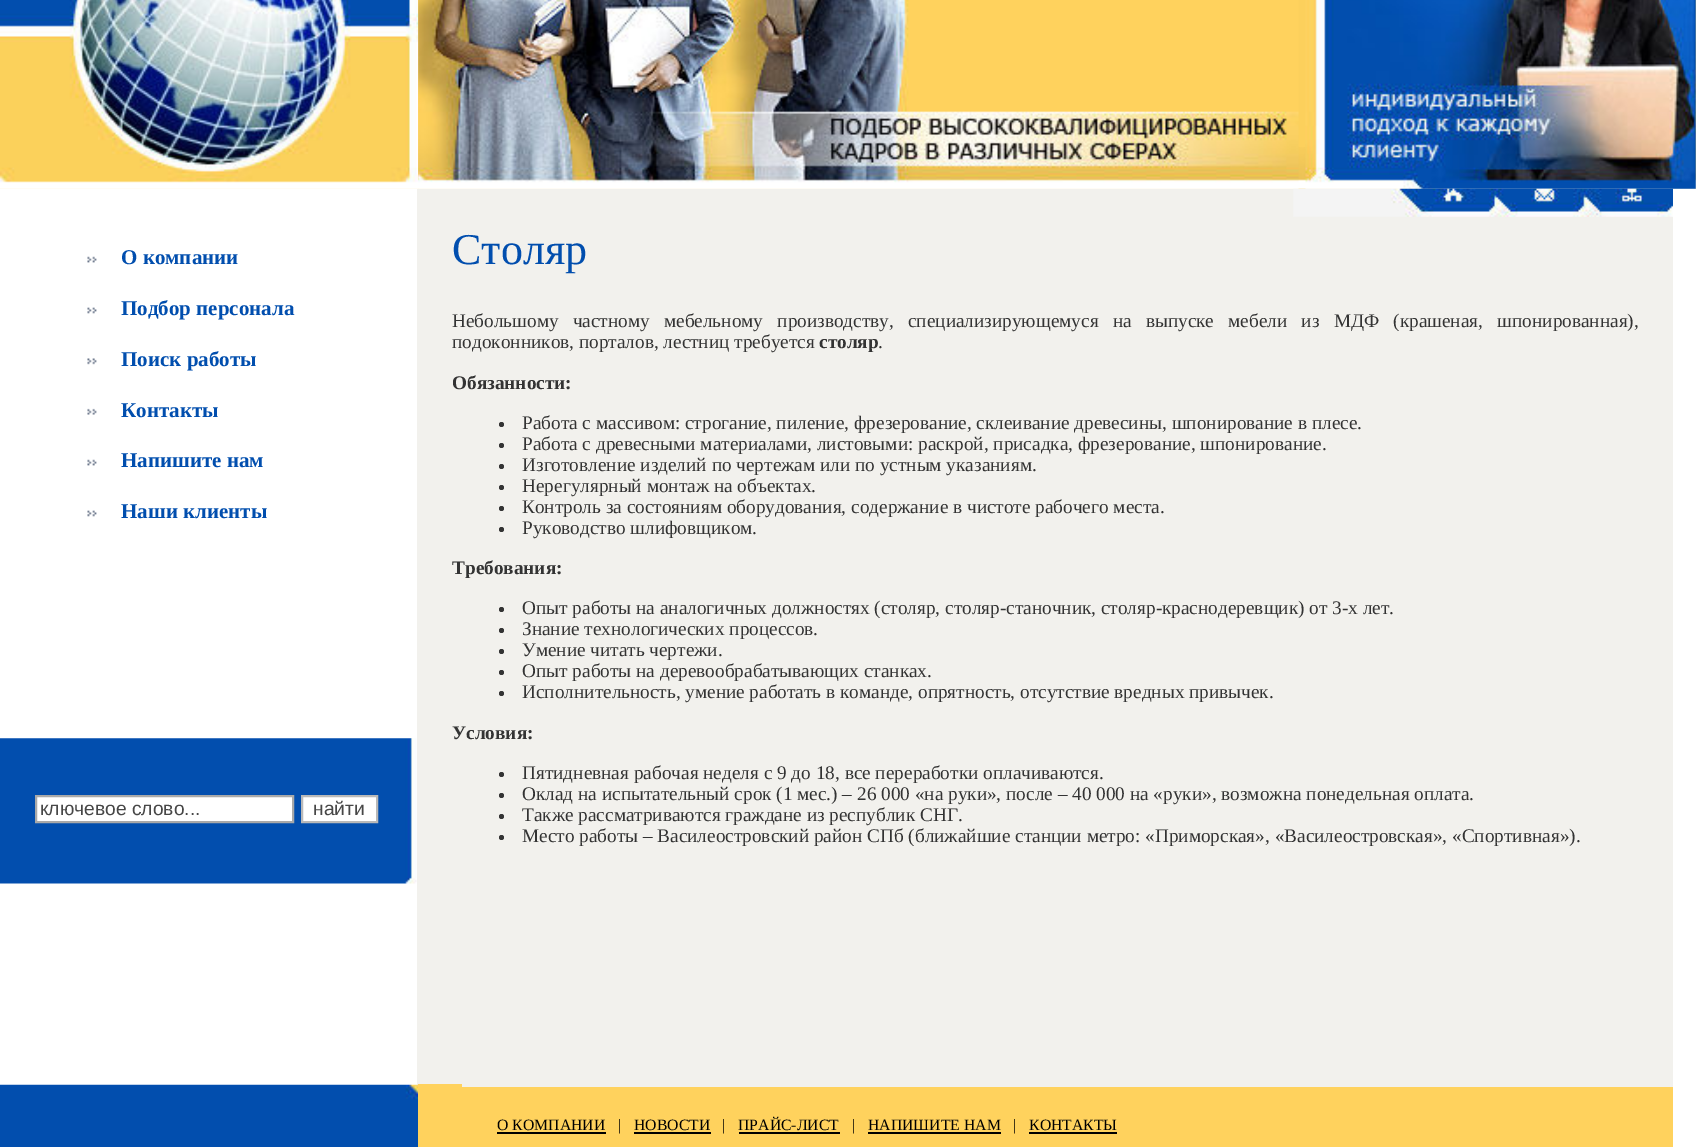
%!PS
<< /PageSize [1697 1147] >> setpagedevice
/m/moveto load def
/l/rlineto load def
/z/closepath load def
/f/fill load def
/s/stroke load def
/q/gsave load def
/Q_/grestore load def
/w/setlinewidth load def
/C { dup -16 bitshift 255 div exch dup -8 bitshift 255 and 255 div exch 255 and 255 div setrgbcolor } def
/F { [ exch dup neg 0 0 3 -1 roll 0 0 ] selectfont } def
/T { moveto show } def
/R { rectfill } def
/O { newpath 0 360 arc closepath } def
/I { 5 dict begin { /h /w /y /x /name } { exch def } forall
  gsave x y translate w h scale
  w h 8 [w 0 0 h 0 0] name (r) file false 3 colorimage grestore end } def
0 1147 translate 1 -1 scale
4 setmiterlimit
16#FFFFFF C
0 0 1697 1147 R
16#FCD05C C
0 0 1696 189 R
(1.rgb) 0 147 1696 42 I
(2.rgb) 0 0 419 189 I
(3.rgb) 418 0 881 189 I
(4.rgb) 1305 0 391 189 I
(5.rgb) 87 256 10 7 I
/LiberationSerif-Bold 21 F
16#014EAE C
(О компании) 121 264 T
(6.rgb) 87 307 10 7 I
(Подбор персонала) 121 315 T
(7.rgb) 87 358 10 7 I
(Поиск работы) 121 366 T
(8.rgb) 87 408 10 7 I
(Контакты) 121 417 T
(5.rgb) 87 459 10 7 I
(Напишите нам) 121 467 T
(6.rgb) 87 510 10 7 I
(Наши клиенты) 121 518 T
(9.rgb) 0 738 417 146 I
16#FFFFFF C
36 796 m 257 0 l 0 26 l -257 0 l z q f Q_
16#A9A9A9 C
2 w
s
/LiberationSans-Regular 19.25 F
16#474747 C
(ключевое слово...) 40 815 T
16#FFFFFF C
302 796 m 75 0 l 0 26 l -75 0 l z q f Q_
16#B9B9B9 C
s
16#474747 C
(найти) 313 815 T
16#F2F1ED C
417 189 1256 896 R
(10.rgb) 1293 188 380 29 I
/LiberationSerif-Regular 44 F
16#014EAE C
(Столяр) 452 264 T
/LiberationSerif-Regular 19.25 F
16#333333 C
452 327 m 9.4 0 32 (Небольшому частному мебельному производству, специализирующемуся на выпуске мебели из МДФ \(крашеная, шпонированная\),) widthshow
(подоконников, порталов, лестниц требуется) 452 348 T
/LiberationSerif-Bold 19.25 F
(столяр) 819 348 T
/LiberationSerif-Regular 19.25 F
(.) 878 348 T
/LiberationSerif-Bold 19.25 F
(Обязанности:) 452 389 T
501.5 424.5 2.5 O f
/LiberationSerif-Regular 19.25 F
(Работа с массивом: строгание, пиление, фрезерование, склеивание древесины, шпонирование в плесе.) 522 429 T
501.5 445.5 2.5 O f
(Работа с древесными материалами, листовыми: раскрой, присадка, фрезерование, шпонирование.) 522 450 T
501.5 466.5 2.5 O f
(Изготовление изделий по чертежам или по устным указаниям.) 522 471 T
501.5 487.5 2.5 O f
(Нерегулярный монтаж на объектах.) 522 492 T
501.5 508.5 2.5 O f
(Контроль за состояниям оборудования, содержание в чистоте рабочего места.) 522 513 T
501.5 529.5 2.5 O f
(Руководство шлифовщиком.) 522 534 T
/LiberationSerif-Bold 19.25 F
(Требования:) 452 574 T
501.5 609.5 2.5 O f
/LiberationSerif-Regular 19.25 F
(Опыт работы на аналогичных должностях \(столяр, столяр-станочник, столяр-краснодеревщик\) от 3-х лет.) 522 614 T
501.5 630.5 2.5 O f
(Знание технологических процессов.) 522 635 T
501.5 651.5 2.5 O f
(Умение читать чертежи.) 522 656 T
501.5 672.5 2.5 O f
(Опыт работы на деревообрабатывающих станках.) 522 677 T
501.5 693.5 2.5 O f
(Исполнительность, умение работать в команде, опрятность, отсутствие вредных привычек.) 522 698 T
/LiberationSerif-Bold 19.25 F
(Условия:) 452 739 T
501.5 774.5 2.5 O f
/LiberationSerif-Regular 19.25 F
(Пятидневная рабочая неделя с 9 до 18, все переработки оплачиваются.) 522 779 T
501.5 795.5 2.5 O f
(Оклад на испытательный срок \(1 мес.\) – 26 000 «на руки», после – 40 000 на «руки», возможна понедельная оплата.) 522 800 T
501.5 816.5 2.5 O f
(Также рассматриваются граждане из республик СНГ.) 522 821 T
501.5 837.5 2.5 O f
(Место работы – Василеостровский район СПб \(ближайшие станции метро: «Приморская», «Василеостровская», «Спортивная»\).) 522 842 T
(11.rgb) 0 1084 418 63 I
16#FFD25D C
418 1084 44 63 R
16#F2F1ED C
462 1085 1211 2 R
16#FFD25D C
462 1087 1211 60 R
/LiberationSerif-Regular 15.75 F
16#000000 C
(О КОМПАНИИ) 497 1130 T
497 1132 109 2 R
(|) 618 1130 T
(НОВОСТИ) 634 1130 T
634 1132 77 2 R
(|) 722 1130 T
(ПРАЙС-ЛИСТ) 738 1130 T
739 1132 101 2 R
(|) 852 1130 T
(НАПИШИТЕ НАМ) 868 1130 T
868 1132 133 2 R
(|) 1013 1130 T
(КОНТАКТЫ) 1029 1130 T
1029 1132 88 2 R
showpage
